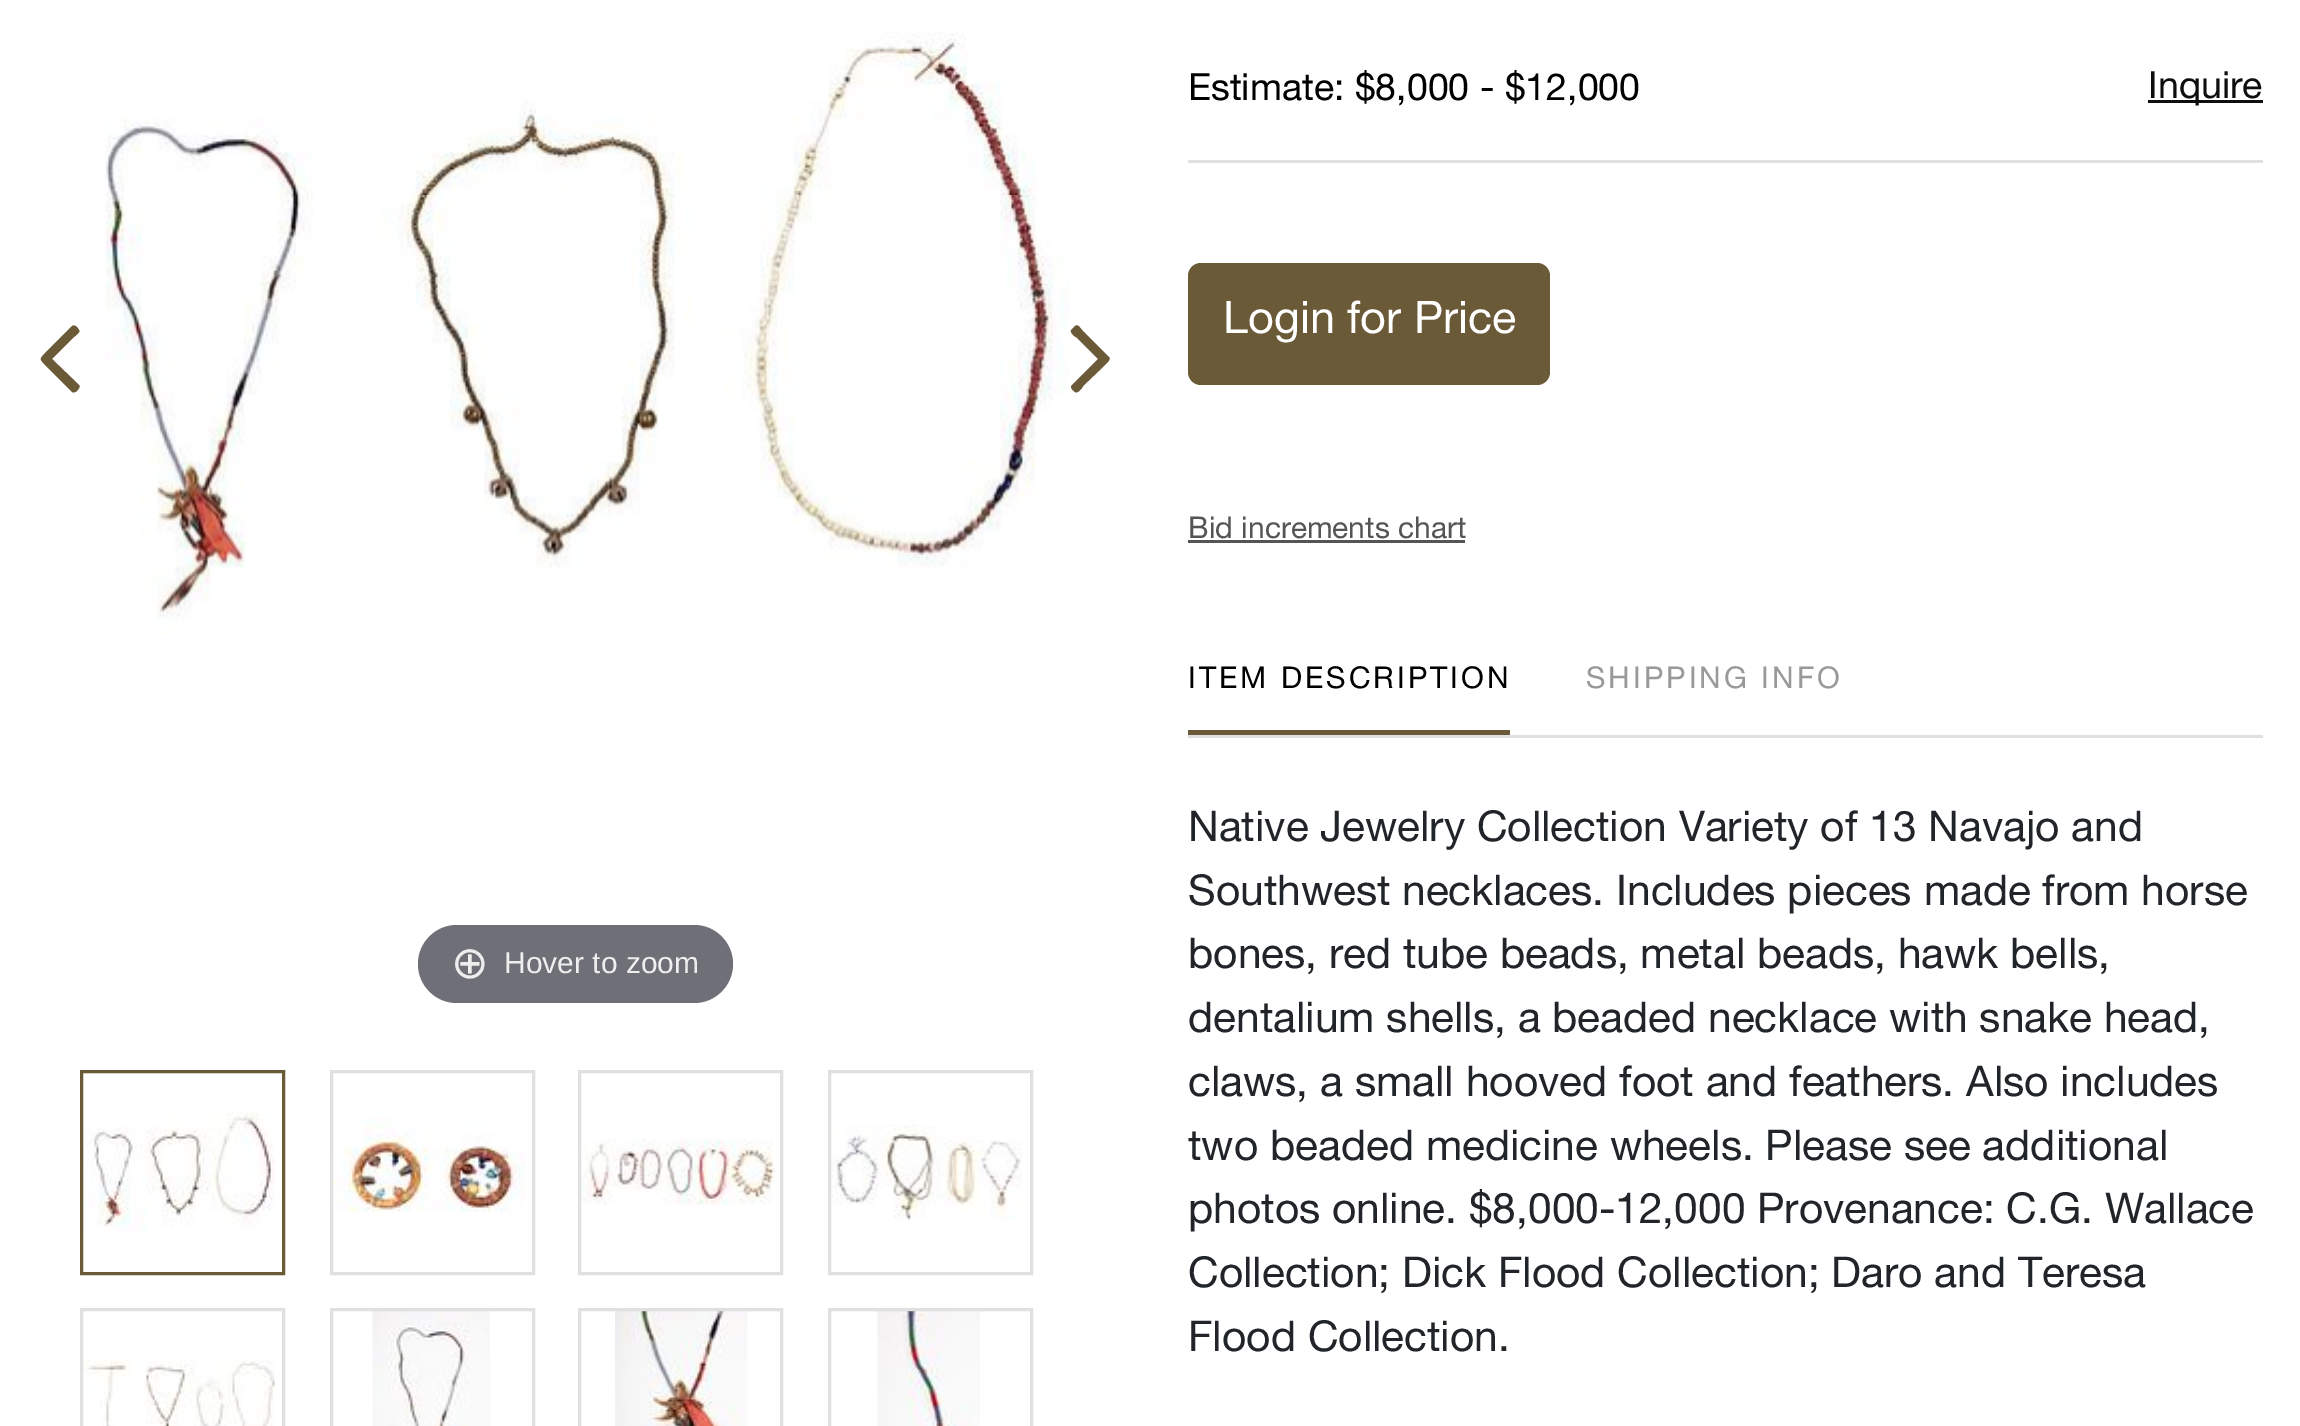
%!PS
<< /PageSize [2300 1426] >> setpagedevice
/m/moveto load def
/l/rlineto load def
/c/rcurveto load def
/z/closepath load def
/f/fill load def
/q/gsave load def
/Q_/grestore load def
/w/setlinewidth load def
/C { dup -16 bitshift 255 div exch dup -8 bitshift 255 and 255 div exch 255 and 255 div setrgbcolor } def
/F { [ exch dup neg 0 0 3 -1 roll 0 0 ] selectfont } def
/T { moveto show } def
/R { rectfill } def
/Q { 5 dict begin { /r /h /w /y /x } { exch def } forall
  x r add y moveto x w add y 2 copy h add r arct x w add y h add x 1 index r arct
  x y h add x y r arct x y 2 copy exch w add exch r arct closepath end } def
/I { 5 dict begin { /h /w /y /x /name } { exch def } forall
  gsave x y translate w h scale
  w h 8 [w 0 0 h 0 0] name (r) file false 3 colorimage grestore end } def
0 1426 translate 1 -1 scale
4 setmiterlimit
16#FFFFFF C
0 0 2300 1426 R
16#6B5A37 C
79 330 m 2 2 -4 6 -5 7 c -22 22 l 27 26 l 2 2 -1 4 -2 6 c -2 1 -3 2 -5 1 c -26 -26 l -7 -8 -7 -6 0 -14 c 26 -26 l 3 -2 6 2 7 4 c z f
1109 357 m 3 3 -5 8 -5 9 c -21 20 l 0 1 -5 8 -8 6 c -1 -1 -6 -4 -3 -7 c 26 -26 l -22 -22 l -1 0 -6 -4 -5 -7 c 3 -3 l 4 -4 5 0 9 4 c z f
(1.rgb) 105 32 964 603 I
16#6F7077 C
418 925 315 78 39 Q f
/DejaVuSans-Regular 45 F
16#EEEEEE C
(⊕) 451 978 T
/LiberationSans-Regular 30 F
(Hover to zoom) 504 973 T
(2.rgb) 83 1112 192 120 I
16#6B5A37 C
3 w
81.5 1071.5 202 202 rectstroke
(3.rgb) 333 1117 192 96 I
16#E0E0E0 C
331.5 1071.5 202 202 rectstroke
(4.rgb) 581 1139 195 66 I
579.5 1071.5 202 202 rectstroke
(5.rgb) 831 1124 191 96 I
829.5 1071.5 202 202 rectstroke
(6.rgb) 83 1359 192 67 I
81.5 1309.5 202 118 rectstroke
(7.rgb) 372 1311 118 115 I
331.5 1309.5 202 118 rectstroke
(8.rgb) 615 1311 133 115 I
579.5 1309.5 202 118 rectstroke
(9.rgb) 877 1311 103 115 I
829.5 1309.5 202 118 rectstroke
1188 160 1075 3 R
/HelveticaNeue-Regular 37.5 F
16#000000 C
(Estimate: $8,000 - $12,000) 1188 100 T
16#0E0E0E C
2148 100 115 3 R
(Inquire) 2148 98 T
16#6B5A37 C
1188 263 362 122 13 Q f
/HelveticaNeue-Regular 45 F
16#FFFFFF C
(Login for Price) 1223 333 T
/HelveticaNeue-Regular 30 F
16#555555 C
(Bid increments chart) 1188 538 T
1188 540 277 3 R
16#E0E0E0 C
1188 735 1075 3 R
16#000000 C
1188 688 m 3 0 (ITEM DESCRIPTION) ashow
16#6B5A37 C
1188 730 322 5 R
16#999999 C
1586 688 m 3 0 (SHIPPING INFO) ashow
/HelveticaNeue-Regular 42.5 F
16#212529 C
(Native Jewelry Collection Variety of 13 Navajo and) 1188 841 T
(Southwest necklaces. Includes pieces made from horse) 1188 905 T
(bones, red tube beads, metal beads, hawk bells,) 1188 968 T
(dentalium shells, a beaded necklace with snake head,) 1188 1032 T
(claws, a small hooved foot and feathers. Also includes) 1188 1096 T
q
1188 775 1075 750 rectclip
(two beaded medicine wheels. Please see additional) 1188 1160 T
Q_
(photos online. $8,000-12,000 Provenance: C.G. Wallace) 1188 1223 T
(Collection; Dick Flood Collection; Daro and Teresa) 1188 1287 T
(Flood Collection.) 1188 1351 T
showpage
